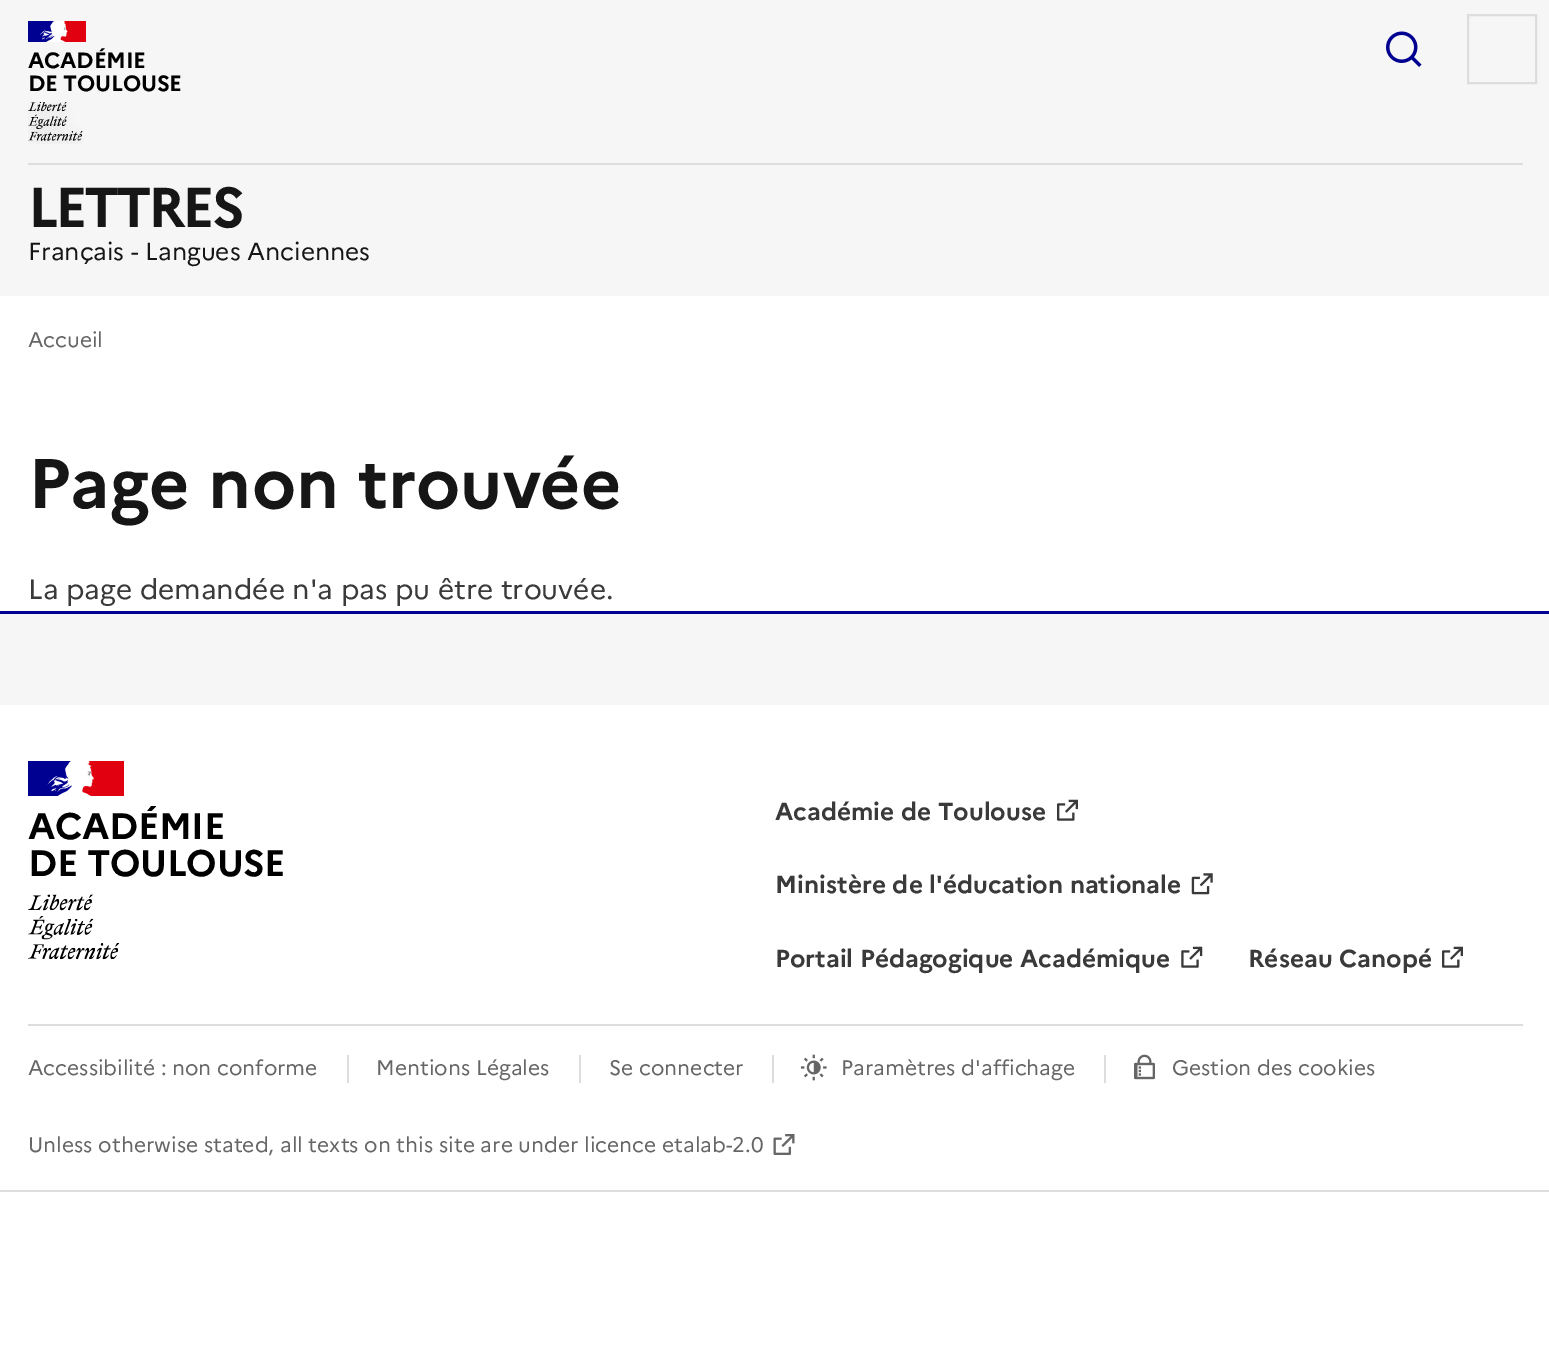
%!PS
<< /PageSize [1549 1349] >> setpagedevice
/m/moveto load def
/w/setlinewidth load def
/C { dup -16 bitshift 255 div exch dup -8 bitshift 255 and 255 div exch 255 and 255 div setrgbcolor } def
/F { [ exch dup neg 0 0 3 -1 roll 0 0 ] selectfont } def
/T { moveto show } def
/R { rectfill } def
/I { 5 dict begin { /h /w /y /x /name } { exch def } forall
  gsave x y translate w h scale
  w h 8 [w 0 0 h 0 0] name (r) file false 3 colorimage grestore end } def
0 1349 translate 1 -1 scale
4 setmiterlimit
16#FFFFFF C
0 0 1549 1349 R
16#F6F6F6 C
0 0 1549 296 R
16#000091 C
28 21 27 21 R
16#E1000F C
60 21 26 21 R
(1.rgb) 39 21 29 21 I
/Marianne-Bold 22 F
16#000000 C
28 68 m -.25 0 (ACADÉMIE) ashow
28 91 m -.25 0 (DE TOULOUSE) ashow
(2.rgb) 28 102 55 42 I
(3.rgb) 1386 31 36 36 I
16#DDDDDD C
2 w
1468 15 68 68 rectstroke
28 163 1495 2 R
/Marianne-Bold 56 F
16#161616 C
28 227 m -3.5 0 (LETTRES) ashow
/Marianne-Regular 24.5 F
(Français - Langues Anciennes) 28 260 T
/Marianne-Regular 21 F
16#666666 C
(Accueil) 28 347 T
/Marianne-Bold 70 F
16#161616 C
(Page non trouvée) 28 508 T
/Marianne-Regular 28 F
16#3A3A3A C
(La page demandée n'a pas pu être trouvée.) 28 599 T
16#DDDDDD C
0 1190 1549 2 R
16#000091 C
0 611 1549 3 R
16#F6F6F6 C
0 614 1549 91 R
16#000091 C
28 761 44 35 R
16#E1000F C
82 761 42 35 R
(4.rgb) 47 761 47 35 I
/Marianne-Bold 36.75 F
16#000000 C
28 839 m -.4 0 (ACADÉMIE) ashow
28 876 m -.4 0 (DE TOULOUSE) ashow
(5.rgb) 28 894 92 66 I
/Marianne-Bold 24.5 F
16#3A3A3A C
(Académie de Toulouse) 775 820 T
(6.rgb) 1057 799 21 22 I
(Ministère de l'éducation nationale) 775 893 T
(7.rgb) 1191 873 22 22 I
(Portail Pédagogique Académique) 775 967 T
(8.rgb) 1181 946 22 22 I
(Réseau Canopé) 1248 967 T
(6.rgb) 1442 946 21 22 I
16#DDDDDD C
28 1024 1495 2 R
/Marianne-Regular 21 F
16#666666 C
(Accessibilité : non conforme) 28 1075 T
16#DDDDDD C
347 1055 2 28 R
16#666666 C
(Mentions Légales) 376 1075 T
16#DDDDDD C
579 1055 2 28 R
16#666666 C
(Se connecter) 609 1075 T
16#DDDDDD C
772 1055 2 28 R
(9.rgb) 800 1054 27 27 I
16#666666 C
(Paramètres d'affichage) 841 1075 T
16#DDDDDD C
1104 1055 2 28 R
(10.rgb) 1134 1054 21 26 I
16#666666 C
(Gestion des cookies) 1172 1075 T
(Unless otherwise stated, all texts on this site are under licence etalab-2.0) 28 1152 T
(11.rgb) 773 1134 22 21 I
showpage
